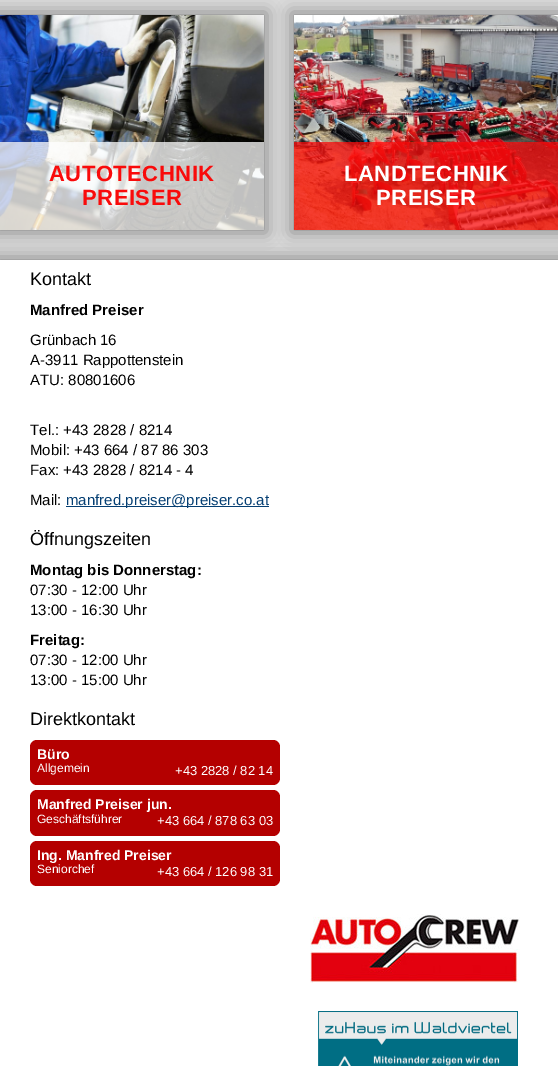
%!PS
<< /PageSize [558 1066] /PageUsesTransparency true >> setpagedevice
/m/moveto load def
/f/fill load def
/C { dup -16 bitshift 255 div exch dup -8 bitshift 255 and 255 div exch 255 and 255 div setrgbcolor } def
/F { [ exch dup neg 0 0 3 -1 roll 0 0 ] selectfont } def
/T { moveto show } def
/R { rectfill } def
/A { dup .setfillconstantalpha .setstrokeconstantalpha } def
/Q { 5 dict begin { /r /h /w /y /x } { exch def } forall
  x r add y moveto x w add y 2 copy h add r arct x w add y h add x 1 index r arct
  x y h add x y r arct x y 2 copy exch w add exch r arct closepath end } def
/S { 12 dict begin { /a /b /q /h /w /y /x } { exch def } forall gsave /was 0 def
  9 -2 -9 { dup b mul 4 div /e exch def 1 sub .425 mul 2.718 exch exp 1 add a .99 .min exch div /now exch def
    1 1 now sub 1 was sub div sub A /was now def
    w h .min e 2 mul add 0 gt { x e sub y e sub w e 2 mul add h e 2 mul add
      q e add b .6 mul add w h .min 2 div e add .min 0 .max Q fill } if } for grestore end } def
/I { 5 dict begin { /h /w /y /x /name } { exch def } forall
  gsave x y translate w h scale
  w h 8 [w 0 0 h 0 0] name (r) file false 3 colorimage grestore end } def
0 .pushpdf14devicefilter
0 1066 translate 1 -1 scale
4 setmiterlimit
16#DBDBDB C
0 0 558 1066 R
16#000000 C
-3 12 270 221 0 8 .35 S
(1.rgb) 0 15 264 215 I
0.75 A
16#FFFFFF C
0 142 264 88 R
/LiberationSans-Bold 22 F
1 A
16#F90B0B C
49 181 m .5 0 (AUTOTECHNIK) ashow
82 205 m .5 0 (PREISER) ashow
16#000000 C
291 12 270 221 0 8 .35 S
(2.rgb) 294 15 264 215 I
0.75 A
16#F90B0B C
294 142 264 88 R
1 A
16#FFFFFF C
344 181 m .5 0 (LANDTECHNIK) ashow
376 205 m .5 0 (PREISER) ashow
16#000000 C
-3 257 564 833 0 8 .35 S
16#FFFFFF C
0 260 558 806 R
/LiberationSans-Regular 18 F
16#000000 C
(Kontakt) 30 285 T
/LiberationSans-Bold 15 F
(Manfred Preiser) 30 315 T
/LiberationSans-Regular 15 F
(Grünbach 16) 30 345 T
(A-3911 Rappottenstein) 30 365 T
(ATU: 80801606) 30 385 T
(Tel.: +43 2828 / 8214) 30 435 T
(Mobil: +43 664 / 87 86 303) 30 455 T
(Fax: +43 2828 / 8214 - 4) 30 475 T
(Mail:) 30 505 T
16#053F73 C
66 506 203 1 R
(manfred.preiser@preiser.co.at) 66 505 T
/LiberationSans-Regular 18 F
16#000000 C
(Öffnungszeiten) 30 545 T
/LiberationSans-Bold 15 F
(Montag bis Donnerstag:) 30 575 T
/LiberationSans-Regular 15 F
(07:30 - 12:00 Uhr) 30 595 T
(13:00 - 16:30 Uhr) 30 615 T
/LiberationSans-Bold 15 F
(Freitag:) 30 645 T
/LiberationSans-Regular 15 F
(07:30 - 12:00 Uhr) 30 665 T
(13:00 - 15:00 Uhr) 30 685 T
/LiberationSans-Regular 18 F
(Direktkontakt) 30 725 T
16#B40000 C
30 740 250 45 7 Q f
/LiberationSans-Bold 14 F
16#FFFFFF C
(Büro) 37 759 T
/LiberationSans-Regular 12 F
(Allgemein) 37 772 T
/LiberationSans-Regular 13 F
(+43 2828 / 82 14) 175 775 T
16#B40000 C
30 790 250 46 7 Q f
/LiberationSans-Bold 14 F
16#FFFFFF C
(Manfred Preiser jun.) 37 809 T
/LiberationSans-Regular 12 F
(Geschäftsführer) 37 823 T
/LiberationSans-Regular 13 F
(+43 664 / 878 63 03) 157 825 T
16#B40000 C
30 841 250 45 7 Q f
/LiberationSans-Bold 14 F
16#FFFFFF C
(Ing. Manfred Preiser) 37 860 T
/LiberationSans-Regular 12 F
(Seniorchef) 37 873 T
/LiberationSans-Regular 13 F
(+43 664 / 126 98 31) 157 876 T
(3.rgb) 310 914 210 69 I
(4.rgb) 318 1011 200 55 I
.poppdf14devicefilter showpage
